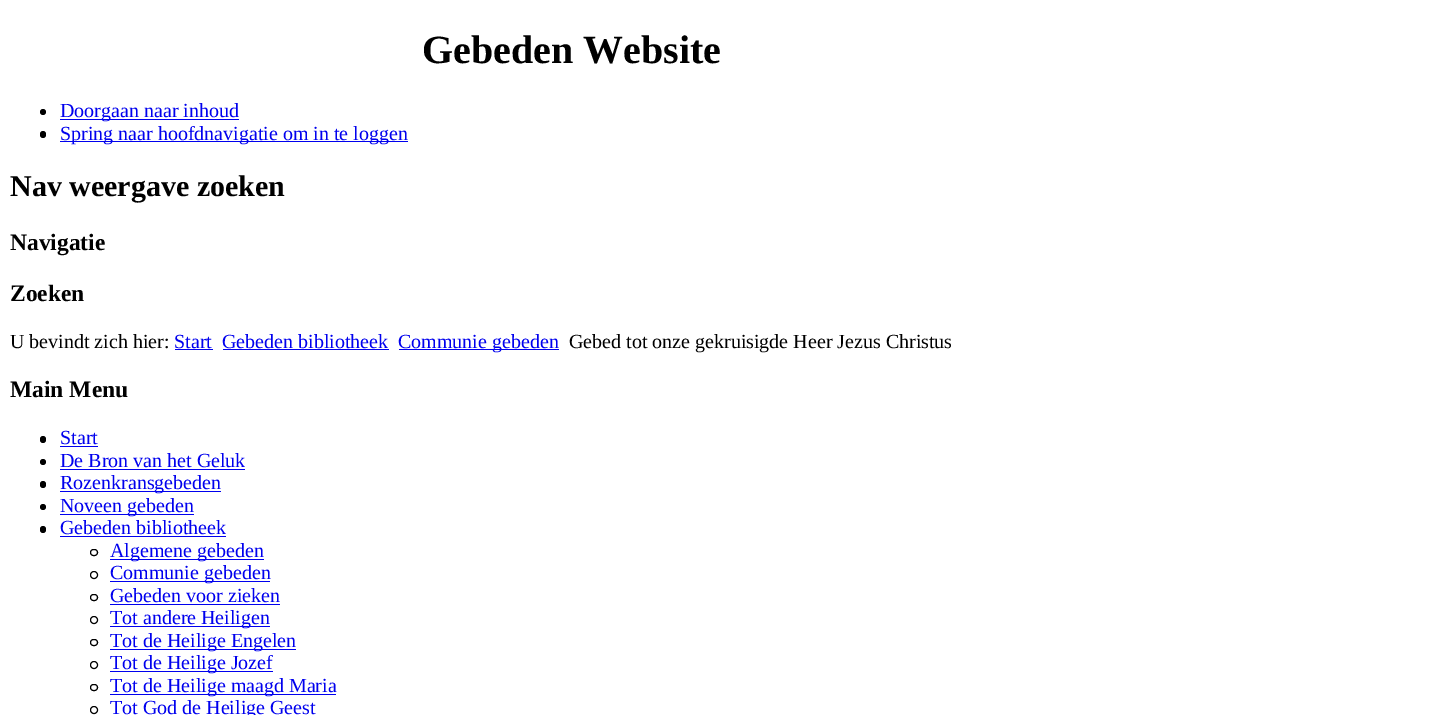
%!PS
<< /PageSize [1439 715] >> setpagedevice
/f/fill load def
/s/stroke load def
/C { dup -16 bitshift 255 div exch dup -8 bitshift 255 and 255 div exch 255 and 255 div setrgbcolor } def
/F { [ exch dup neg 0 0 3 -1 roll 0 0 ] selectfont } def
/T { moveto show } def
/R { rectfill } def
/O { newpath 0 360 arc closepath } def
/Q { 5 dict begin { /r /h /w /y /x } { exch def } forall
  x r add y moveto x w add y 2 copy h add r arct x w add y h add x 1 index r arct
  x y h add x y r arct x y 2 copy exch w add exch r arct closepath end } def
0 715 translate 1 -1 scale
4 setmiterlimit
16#FFFFFF C
0 0 1439 715 R
/LiberationSerif-Bold 40 F
16#000000 C
(Gebeden Website) 422 63 T
43 112 3 O f
16#0000EE C
60 119 179 1 R
/LiberationSerif-Regular 20 F
(Doorgaan naar inhoud) 60 117 T
16#000000 C
40 131 6 7 3 Q f
16#0000EE C
60 141 348 1 R
(Spring naar hoofdnavigatie om in te loggen) 60 140 T
/LiberationSerif-Bold 30 F
16#000000 C
(Nav weergave zoeken) 10 196 T
/LiberationSerif-Bold 23.5 F
(Navigatie) 10 250 T
(Zoeken) 10 301 T
/LiberationSerif-Regular 20 F
(U bevindt zich hier:) 10 348 T
16#0000EE C
(Start) 174 348 T
175 349 38 1 R
(Gebeden bibliotheek) 222 348 T
223 349 166 1 R
399 349 160 1 R
(Communie gebeden) 398 348 T
16#000000 C
(Gebed tot onze gekruisigde Heer Jezus Christus) 569 348 T
/LiberationSerif-Bold 23.5 F
(Main Menu) 10 397 T
40 436 6 7 3 Q f
/LiberationSerif-Regular 20 F
16#0000EE C
(Start) 60 444 T
60 446 38 1 R
16#000000 C
43 462 3 O f
16#0000EE C
(De Bron van het Geluk) 60 467 T
60 469 185 1 R
16#000000 C
40 481 6 7 3 Q f
16#0000EE C
60 491 161 1 R
(Rozenkransgebeden) 60 489 T
16#000000 C
43 507 3 O f
16#0000EE C
60 514 134 1 R
(Noveen gebeden) 60 512 T
16#000000 C
40 526 6 7 3 Q f
16#0000EE C
(Gebeden bibliotheek) 60 534 T
60 536 166 1 R
16#000000 C
90.5 549.5 7 6 3 Q s
16#0000EE C
110 559 154 1 R
(Algemene gebeden) 110 557 T
16#000000 C
94 575 3.5 O s
16#0000EE C
110 581 160 1 R
(Communie gebeden) 110 579 T
16#000000 C
90.5 594.5 7 6 3 Q s
16#0000EE C
(Gebeden voor zieken) 110 602 T
110 604 170 1 R
16#000000 C
94 620 3.5 O s
16#0000EE C
110 626 160 1 R
(Tot andere Heiligen) 110 624 T
16#000000 C
90.5 639.5 7 6 3 Q s
16#0000EE C
110 649 186 1 R
(Tot de Heilige Engelen) 110 647 T
16#000000 C
94 665 3.5 O s
16#0000EE C
110 671 163 1 R
(Tot de Heilige Jozef) 110 669 T
16#000000 C
90.5 684.5 7 6 3 Q s
16#0000EE C
110 694 226 1 R
(Tot de Heilige maagd Maria) 110 692 T
16#000000 C
94 710 3.5 O s
16#0000EE C
(Tot God de Heilige Geest) 110 714 T
showpage
